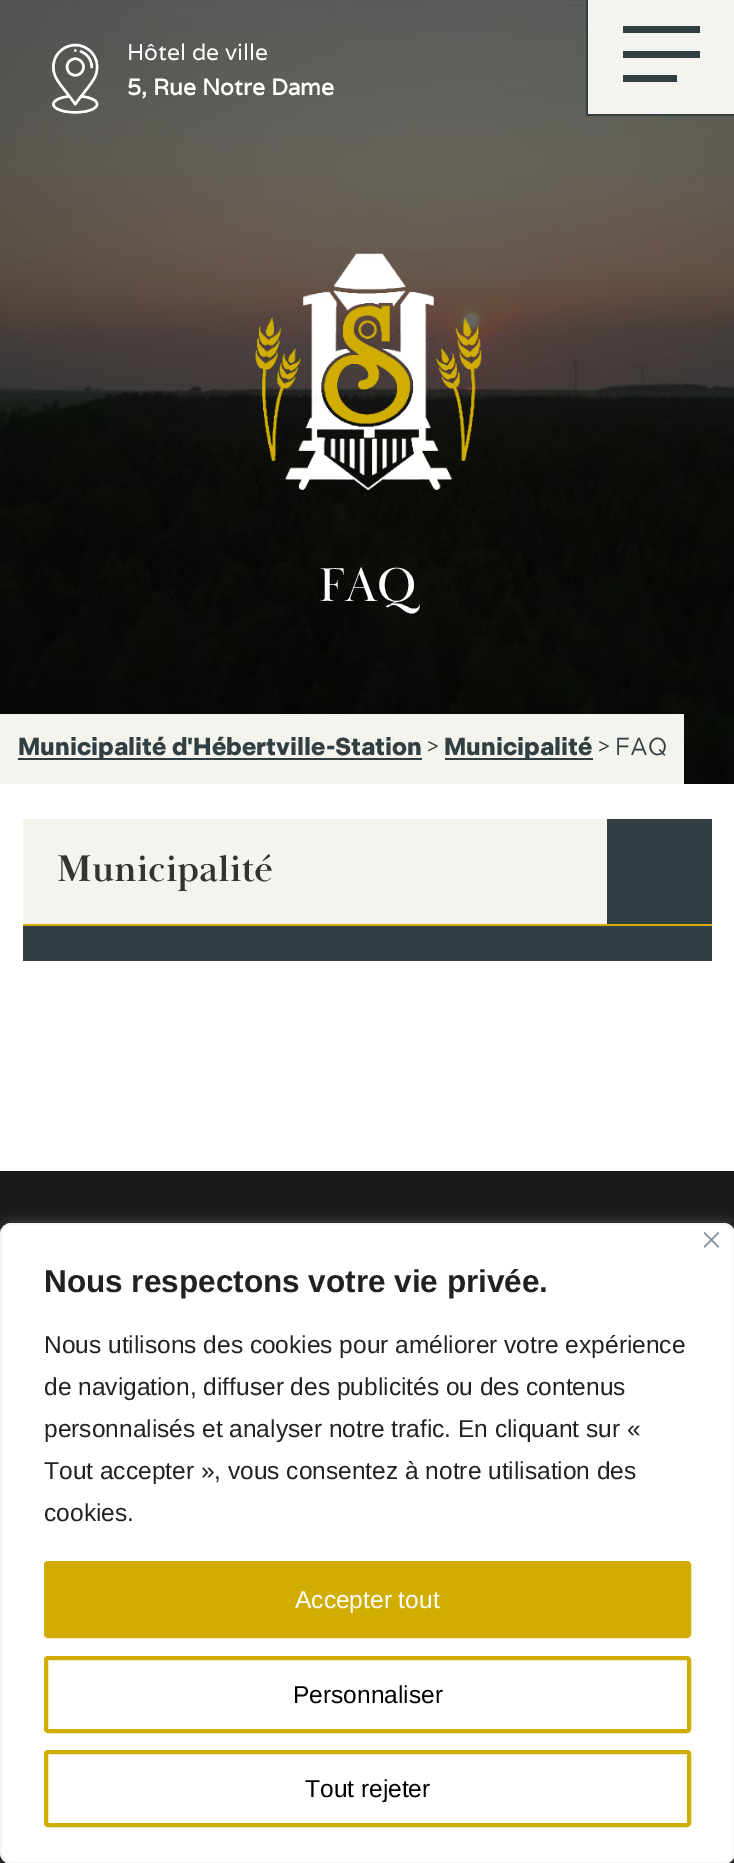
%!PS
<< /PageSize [734 1863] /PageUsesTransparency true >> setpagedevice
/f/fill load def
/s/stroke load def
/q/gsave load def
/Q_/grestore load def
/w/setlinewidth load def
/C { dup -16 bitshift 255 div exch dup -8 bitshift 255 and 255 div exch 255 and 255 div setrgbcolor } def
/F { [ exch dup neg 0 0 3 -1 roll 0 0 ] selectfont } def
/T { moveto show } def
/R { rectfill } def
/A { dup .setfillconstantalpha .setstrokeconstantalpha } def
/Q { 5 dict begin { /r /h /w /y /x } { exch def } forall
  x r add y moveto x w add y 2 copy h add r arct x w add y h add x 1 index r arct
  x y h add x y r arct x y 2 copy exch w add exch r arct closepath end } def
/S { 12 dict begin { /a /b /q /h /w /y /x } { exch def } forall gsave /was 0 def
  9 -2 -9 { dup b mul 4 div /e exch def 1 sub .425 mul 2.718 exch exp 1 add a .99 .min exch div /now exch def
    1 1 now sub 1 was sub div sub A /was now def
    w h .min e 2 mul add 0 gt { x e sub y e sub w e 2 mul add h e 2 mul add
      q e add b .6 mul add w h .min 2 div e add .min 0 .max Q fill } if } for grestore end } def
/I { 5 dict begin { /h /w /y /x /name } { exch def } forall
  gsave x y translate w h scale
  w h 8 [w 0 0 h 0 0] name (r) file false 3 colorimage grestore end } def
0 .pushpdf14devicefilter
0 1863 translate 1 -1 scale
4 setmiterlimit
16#FFFFFF C
0 0 734 1863 R
(1.rgb) 0 0 734 784 I
(2.rgb) 51 43 48 71 I
/Varela-Regular 22.75 F
(Hôtel de ville) 127 60 T
/Varela-Bold 22.75 F
(5, Rue Notre Dame) 127 95 T
16#F5F3ED C
588 0 146 114 R
16#323F42 C
586 114 148 2 R
586 0 2 116 R
623 26 77 7 R
623 51 77 7 R
623 75 54 7 R
(3.rgb) 255 253 227 237 I
/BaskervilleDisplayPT-Regular 49 F
16#FFFFFF C
(FAQ) 319 601 T
16#F5F3ED C
0 714 684 70 R
16#323F42 C
18 758 404 2 R
/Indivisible-Bold 24.5 F
(Municipalité d'Hébertville-Station) 18 755 T
/Indivisible-Regular 24.5 F
(>) 427 755 T
445 758 148 2 R
/Indivisible-Bold 24.5 F
(Municipalité) 444 755 T
/Indivisible-Regular 24.5 F
(> FAQ) 598 755 T
16#F5F3ED C
23 819 584 105 R
16#D0AD00 C
23 924 689 2 R
/BaskervilleDisplayPT-Bold 38.5 F
16#333333 C
(Municipalité) 57 881 T
16#323F42 C
607 819 105 105 R
23 926 689 35 R
16#181818 C
0 1171 734 692 R
16#ACABAB C
0 1222 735 640 11 9 .3 S
16#FFFFFF C
1 1224 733 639 10 Q q f Q_
16#F4F4F4 C
2 w
s
(4.rgb) 704 1232 15 16 I
/LiberationSans-Bold 31.5 F
16#212121 C
(Nous respectons votre vie privée.) 44 1292 T
/LiberationSans-Regular 24.5 F
(Nous utilisons des cookies pour améliorer votre expérience) 44 1353 T
(de navigation, diffuser des publicités ou des contenus) 44 1395 T
(personnalisés et analyser notre trafic. En cliquant sur «) 44 1437 T
(Tout accepter », vous consentez à notre utilisation des) 44 1479 T
(cookies.) 44 1521 T
16#D0AD00 C
46 1563 643 73 2 Q q f Q_
4 w
s
16#FFFFFF C
(Accepter tout) 295 1608 T
16#D0AD00 C
46 1658 643 73 2 Q s
16#000000 C
(Personnaliser) 293 1703 T
16#D0AD00 C
46 1752 643 73 2 Q s
16#000000 C
(Tout rejeter) 305 1797 T
.poppdf14devicefilter showpage
